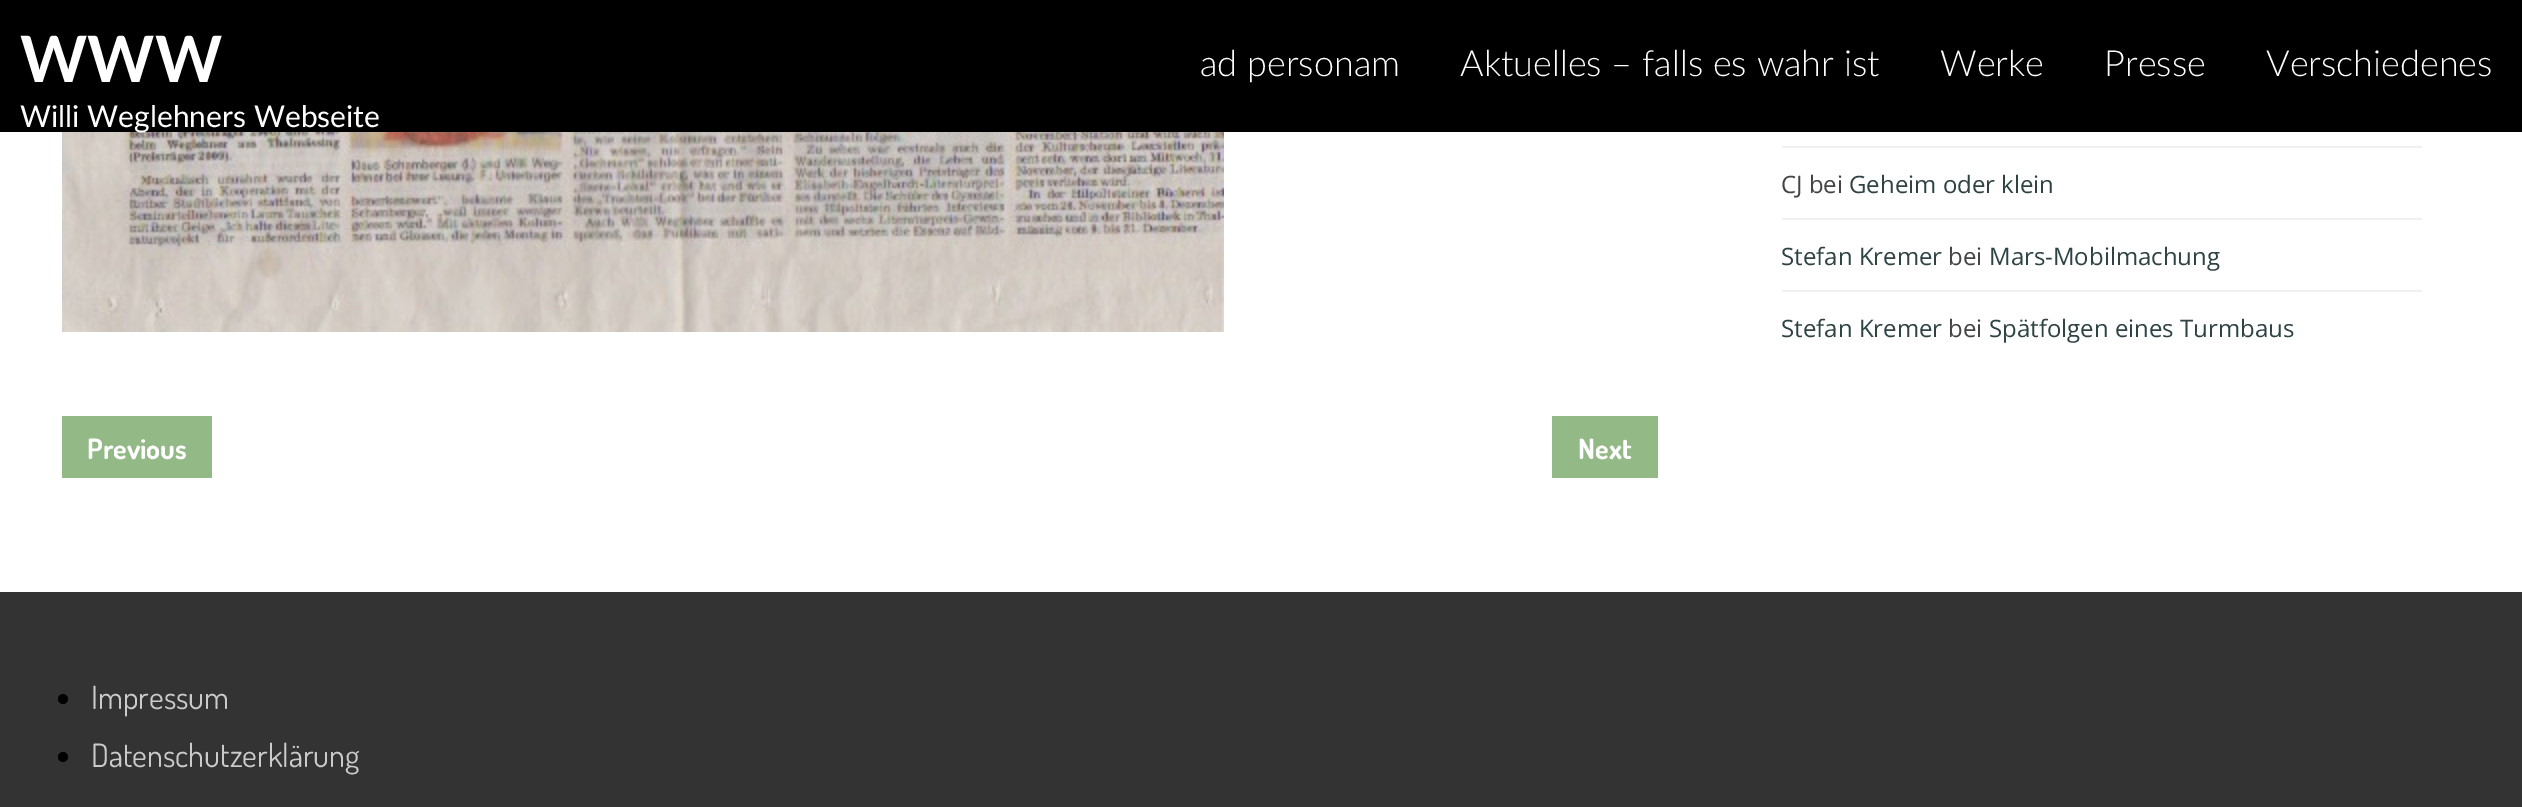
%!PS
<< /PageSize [2522 807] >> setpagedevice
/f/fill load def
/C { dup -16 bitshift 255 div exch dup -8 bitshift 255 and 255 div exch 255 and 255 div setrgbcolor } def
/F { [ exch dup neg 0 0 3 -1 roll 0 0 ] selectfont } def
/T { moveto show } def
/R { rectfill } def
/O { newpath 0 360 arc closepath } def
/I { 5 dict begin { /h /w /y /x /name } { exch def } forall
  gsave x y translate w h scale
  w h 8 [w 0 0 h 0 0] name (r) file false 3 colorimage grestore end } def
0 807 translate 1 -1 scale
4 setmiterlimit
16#FFFFFF C
0 0 2522 807 R
16#000000 C
0 0 2522 132 R
/Lato-Bold 64 F
16#FFFFFF C
(WWW) 20 82 T
(1.rgb) 62 132 1162 200 I
/Lato-Regular 30 F
(Willi Weglehners Webseite) 20 127 T
/Lato-Light 36 F
(ad personam) 1200 76 T
(Aktuelles – falls es wahr ist) 1460 76 T
(Werke) 1940 76 T
(Presse) 2104 76 T
(Verschiedenes) 2266 76 T
16#F0F0F0 C
1782 146 640 2 R
1782 218 640 2 R
/OpenSans-Regular 24 F
16#444444 C
(CJ bei) 1781 193 T
16#2F4344 C
(Geheim oder klein) 1849 193 T
16#F0F0F0 C
1782 290 640 2 R
16#2F4344 C
(Stefan Kremer) 1781 265 T
16#444444 C
(bei) 1948 265 T
16#2F4344 C
(Mars-Mobilmachung) 1989 265 T
(Stefan Kremer) 1781 337 T
16#444444 C
(bei) 1948 337 T
16#2F4344 C
(Spätfolgen eines Turmbaus) 1989 337 T
16#93B986 C
62 416 150 62 R
/Dosis-Bold 28 F
16#FFFFFF C
(Previous) 87 459 T
16#93B986 C
1552 416 106 62 R
16#FFFFFF C
(Next) 1578 459 T
16#333333 C
0 592 2522 215 R
16#000000 C
63 699 5 O f
/Dosis-Regular 32 F
16#CBCBCB C
(Impressum) 91 709 T
16#000000 C
63 757 5 O f
16#CBCBCB C
(Datenschutzerklärung) 91 767 T
showpage
